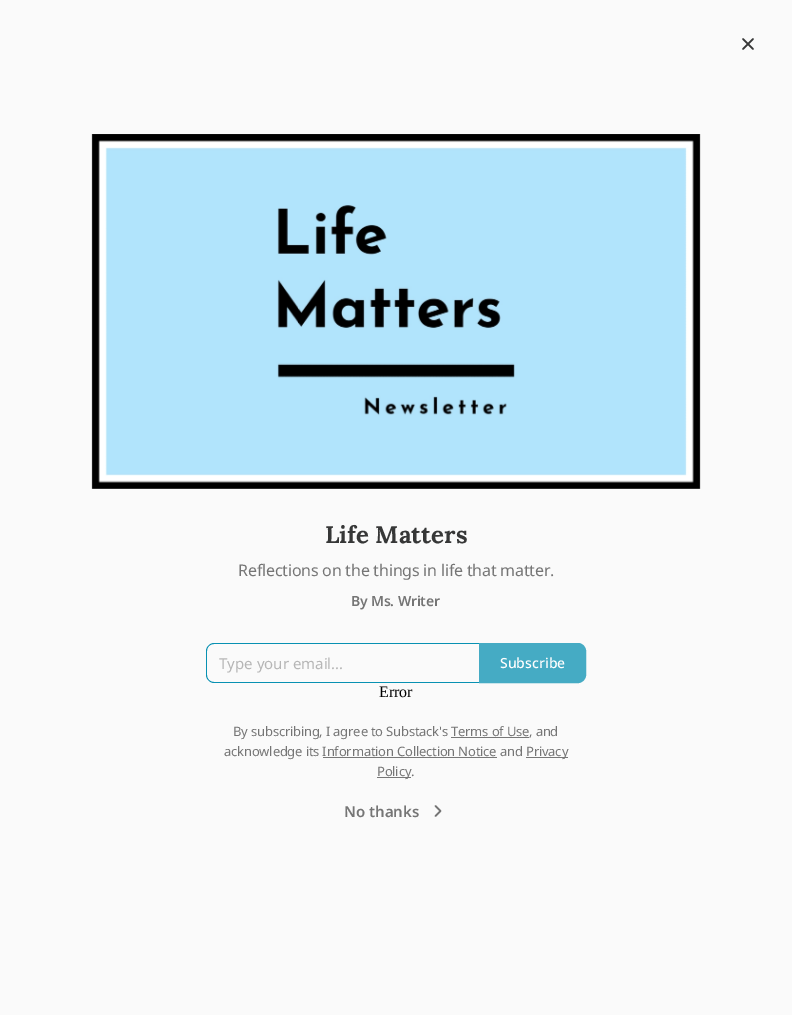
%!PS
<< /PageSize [792 1015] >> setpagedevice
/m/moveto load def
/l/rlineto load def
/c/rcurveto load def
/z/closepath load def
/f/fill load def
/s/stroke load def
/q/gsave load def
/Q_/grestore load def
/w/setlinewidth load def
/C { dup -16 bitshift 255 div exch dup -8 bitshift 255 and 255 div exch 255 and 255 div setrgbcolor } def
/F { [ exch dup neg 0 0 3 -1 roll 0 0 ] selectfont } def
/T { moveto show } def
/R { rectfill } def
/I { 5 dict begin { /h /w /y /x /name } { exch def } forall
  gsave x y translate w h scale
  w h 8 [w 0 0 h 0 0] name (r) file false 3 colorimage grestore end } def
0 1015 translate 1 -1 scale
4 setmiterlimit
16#FAFAFA C
0 0 792 1015 R
16#363737 C
1.7 w
1 setlinecap
1 setlinejoin
753 39 m -10 10 l 743 39 m 10 10 l s
(1.rgb) 91 134 610 355 I
/Lora-Bold 24 F
(Life Matters) 325 543 T
/NotoSans-Regular 16 F
16#757575 C
238 576 m -.2 0 (Reflections on the things in life that matter.) ashow
/NotoSans-SemiBold 14 F
351 606 m -.2 0 (By Ms. Writer) ashow
16#0891B2 C
214 643 m 265 0 l 0 40 l -265 0 l -4 0 -8 -4 -8 -8 c 0 -24 l 0 -4 4 -8 8 -8 c z 214 644 m 265 0 l 0 38 l -265 0 l -4 0 -7 -3 -7 -7 c 0 -24 l 0 -4 3 -7 7 -7 c z eofill
/NotoSans-Regular 15 F
16#B6B6B6 C
(Type your email...) 219 669 T
16#45ABC4 C
479.5 643.5 m 98.5 0 l 4 0 7.5 3.5 7.5 7.5 c 0 24 l 0 4 -3.5 7.5 -7.5 7.5 c -98.5 0 l z q f Q_
1 w
0 setlinecap
0 setlinejoin
s
/NotoSans-Medium 14 F
16#FEFEFE C
(Subscribe) 500 668 T
/LiberationSerif-Regular 16 F
16#000000 C
(Error) 379 697 T
/NotoSans-Regular 13 F
16#757575 C
233 736 m -.2 0 (By subscribing, I agree to Substack's Terms of Use, and) ashow
16#777777 C
451 737 78 1 R
16#757575 C
224 756 m -.2 0 (acknowledge its Information Collection Notice and) ashow
16#777777 C
526 757 42 1 R
16#757575 C
526 756 m -.2 0 (Privacy) ashow
16#777777 C
323 757 174 1 R
377 777 34 1 R
16#757575 C
377 776 m -.2 0 (Policy.) ashow
/NotoSans-SemiBold 15 F
(No thanks) 344 817 T
1.7 w
1 setlinecap
1 setlinejoin
435.5 816 m 5 -5 l -5 -5 l s
showpage
